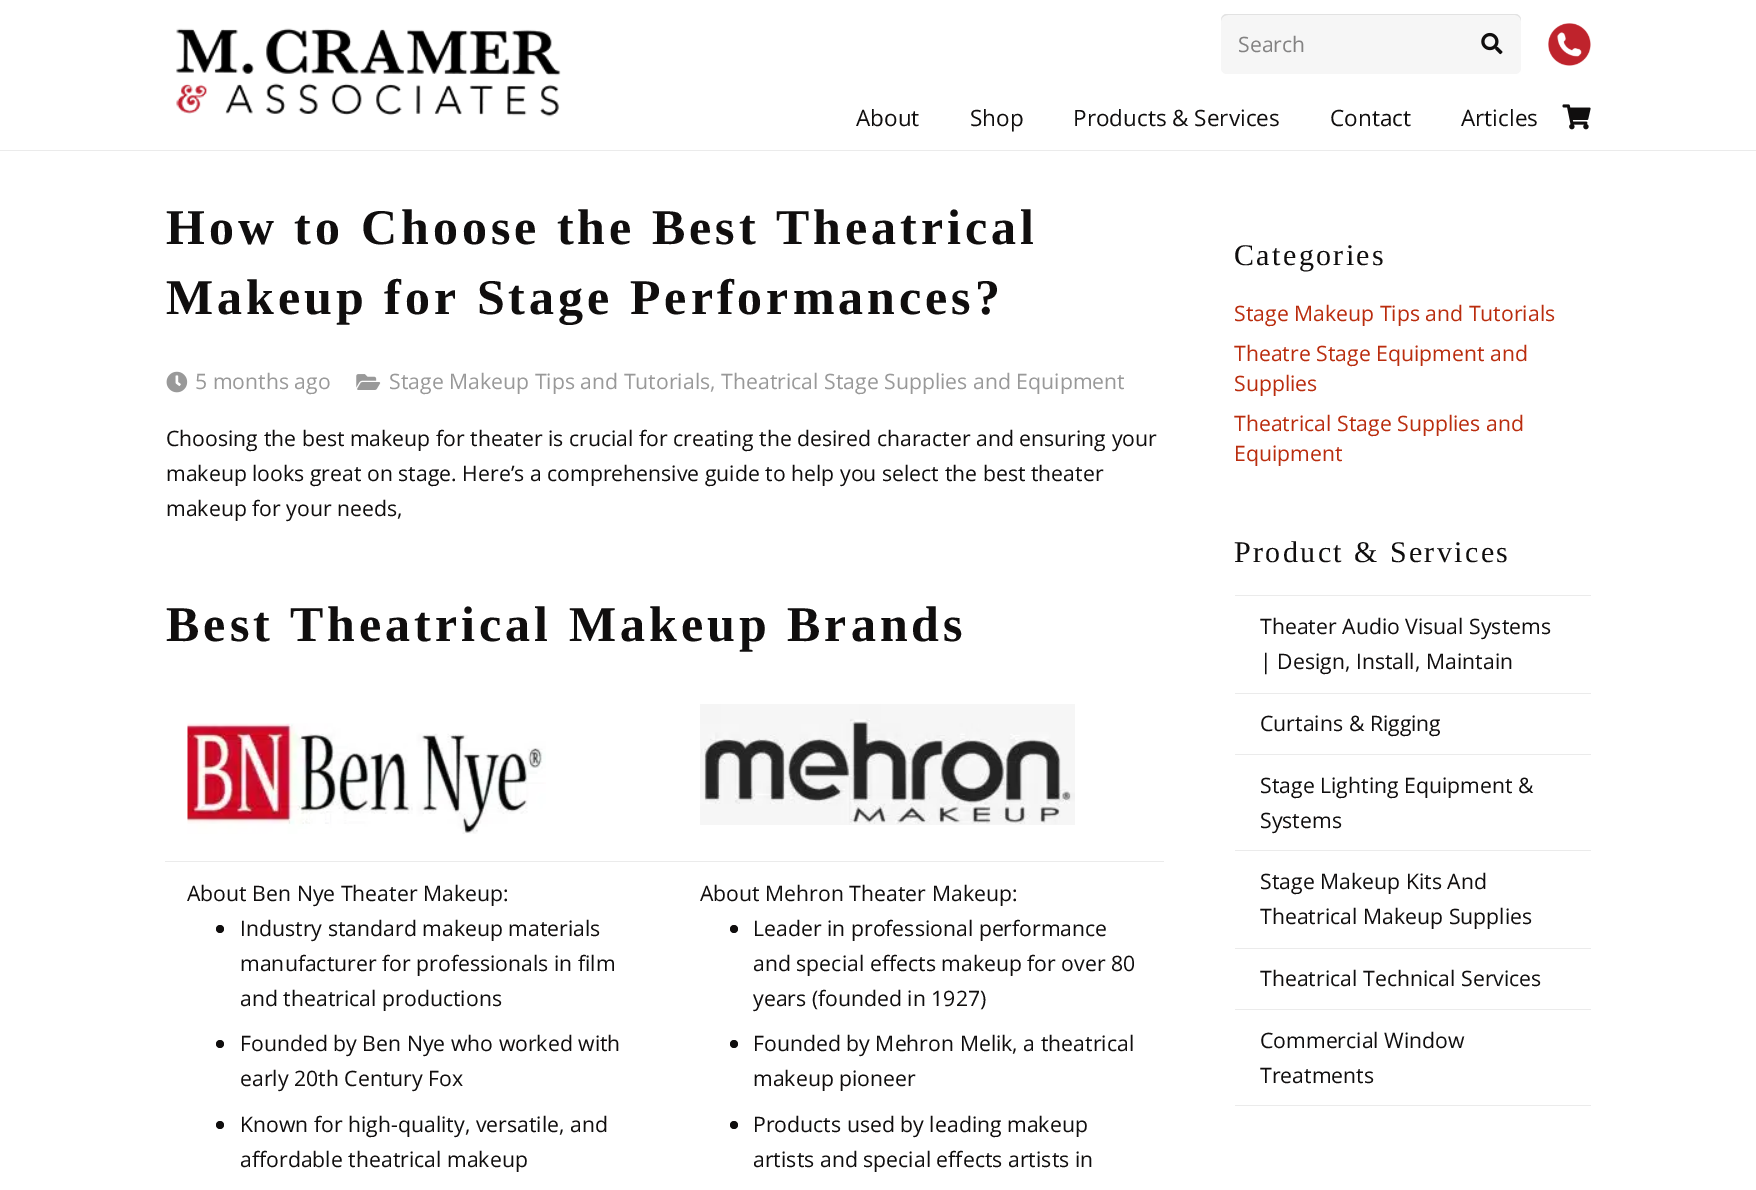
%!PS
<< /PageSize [1756 1190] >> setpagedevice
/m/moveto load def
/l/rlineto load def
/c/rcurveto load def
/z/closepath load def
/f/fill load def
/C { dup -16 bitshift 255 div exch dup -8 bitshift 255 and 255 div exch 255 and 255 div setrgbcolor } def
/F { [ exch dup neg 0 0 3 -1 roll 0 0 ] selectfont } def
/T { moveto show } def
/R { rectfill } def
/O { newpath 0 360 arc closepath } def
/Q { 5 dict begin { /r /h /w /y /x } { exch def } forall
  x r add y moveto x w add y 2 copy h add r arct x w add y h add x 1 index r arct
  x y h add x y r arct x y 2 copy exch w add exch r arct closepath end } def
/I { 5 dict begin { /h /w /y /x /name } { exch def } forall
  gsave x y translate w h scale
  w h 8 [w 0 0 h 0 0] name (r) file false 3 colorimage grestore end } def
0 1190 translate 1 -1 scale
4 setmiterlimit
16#FFFFFF C
0 0 1756 1190 R
16#EBEBEB C
0 150 1756 1 R
(1.rgb) 176 28 385 89 I
16#F6F6F6 C
1221 14 300 60 6 Q f
16#E2E2E2 C
1228 15 m 287 0 l 3 0 6 3 6 6 c 0 -4 -2 -7 -6 -7 c -288 0 l -4 0 -6 3 -6 7 c 0 -3 3 -6 7 -6 c z f
/OpenSans-Regular 21.25 F
16#838282 C
(Search) 1238 52 T
(2.rgb) 1481 32 22 23 I
(3.rgb) 1548 23 43 43 I
/OpenSans-Regular 22.5 F
16#100E0E C
(About) 856 126 T
(Shop) 970 126 T
(Products & Services) 1073 126 T
(Contact) 1330 126 T
(Articles) 1461 126 T
(4.rgb) 1562 104 29 26 I
/LiberationSerif-Bold 50 F
166 244 m 4 0 (How to Choose the Best Theatrical) ashow
166 314 m 4 0 (Makeup for Stage Performances?) ashow
(5.rgb) 166 371 22 22 I
/OpenSans-Regular 21.25 F
16#999999 C
(5 months ago) 195 389 T
(6.rgb) 356 374 25 16 I
(Stage Makeup Tips and Tutorials, Theatrical Stage Supplies and Equipment) 389 389 T
16#100E0E C
(Choosing the best makeup for theater is crucial for creating the desired character and ensuring your) 166 446 T
(makeup looks great on stage. Here’s a comprehensive guide to help you select the best theater) 166 481 T
(makeup for your needs,) 166 516 T
/LiberationSerif-Bold 50 F
166 641 m 4 0 (Best Theatrical Makeup Brands) ashow
16#EBEBEB C
165 861 999 1 R
(7.rgb) 700 704 375 121 I
(8.rgb) 187 723 359 111 I
/OpenSans-Regular 21.25 F
16#100E0E C
(About Ben Nye Theater Makeup:) 187 901 T
220 929 4 O f
(Industry standard makeup materials) 240 936 T
(manufacturer for professionals in film) 240 971 T
(and theatrical productions) 240 1006 T
220 1044 4 O f
(Founded by Ben Nye who worked with) 240 1051 T
(early 20th Century Fox) 240 1086 T
220 1125 4 O f
(Known for high-quality, versatile, and) 240 1132 T
(affordable theatrical makeup) 240 1167 T
(About Mehron Theater Makeup:) 700 901 T
734 929 4 O f
(Leader in professional performance) 753 936 T
(and special effects makeup for over 80) 753 971 T
(years \(founded in 1927\)) 753 1006 T
734 1044 4 O f
(Founded by Mehron Melik, a theatrical) 753 1051 T
(makeup pioneer) 753 1086 T
734 1125 4 O f
(Products used by leading makeup) 753 1132 T
(artists and special effects artists in) 753 1167 T
/LiberationSerif-Regular 30 F
1234 265 m 2.4 0 (Categories) ashow
/OpenSans-Regular 21.25 F
16#BA2D0E C
(Stage Makeup Tips and Tutorials) 1234 321 T
(Theatre Stage Equipment and) 1234 361 T
(Supplies) 1234 391 T
(Theatrical Stage Supplies and) 1234 431 T
(Equipment) 1234 461 T
/LiberationSerif-Regular 30 F
16#100E0E C
1234 562 m 2.4 0 (Product & Services) ashow
16#EBEBEB C
1235 1105 356 1 R
1235 595 356 1 R
/OpenSans-Regular 21.25 F
16#100E0E C
(Theater Audio Visual Systems) 1260 634 T
(| Design, Install, Maintain) 1260 669 T
16#EBEBEB C
1235 693 356 1 R
16#100E0E C
(Curtains & Rigging) 1260 731 T
16#EBEBEB C
1235 754 356 1 R
16#100E0E C
(Stage Lighting Equipment &) 1260 793 T
(Systems) 1260 828 T
16#EBEBEB C
1235 850 356 1 R
16#100E0E C
(Stage Makeup Kits And) 1260 889 T
(Theatrical Makeup Supplies) 1260 924 T
16#EBEBEB C
1235 948 356 1 R
16#100E0E C
(Theatrical Technical Services) 1260 986 T
16#EBEBEB C
1235 1009 356 1 R
16#100E0E C
(Commercial Window) 1260 1048 T
(Treatments) 1260 1083 T
showpage
